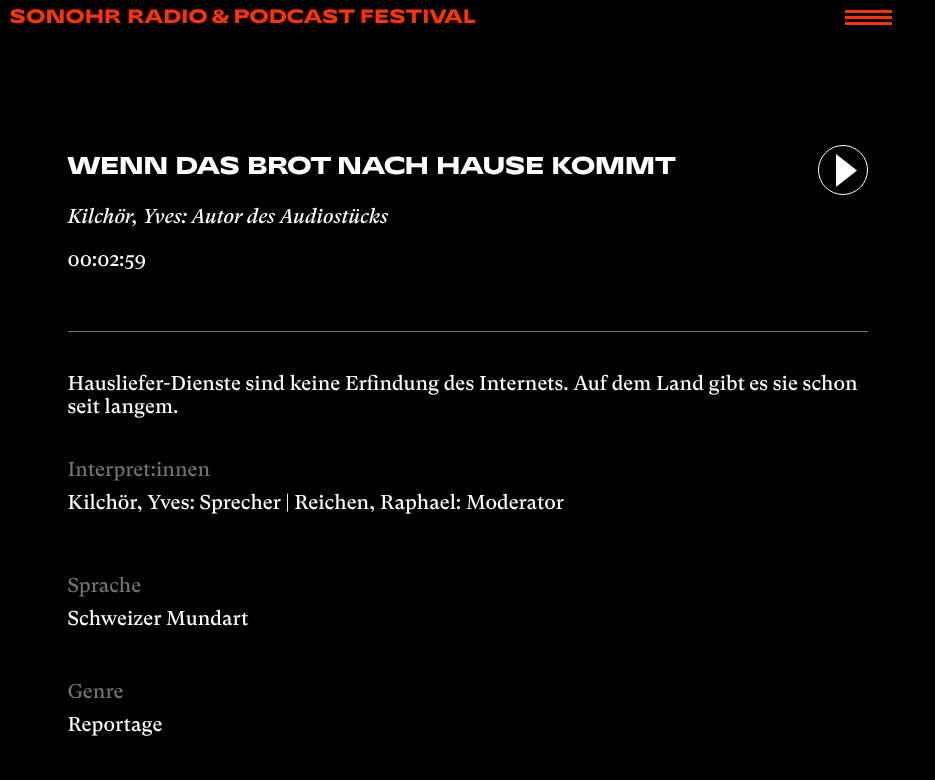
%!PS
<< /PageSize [935 780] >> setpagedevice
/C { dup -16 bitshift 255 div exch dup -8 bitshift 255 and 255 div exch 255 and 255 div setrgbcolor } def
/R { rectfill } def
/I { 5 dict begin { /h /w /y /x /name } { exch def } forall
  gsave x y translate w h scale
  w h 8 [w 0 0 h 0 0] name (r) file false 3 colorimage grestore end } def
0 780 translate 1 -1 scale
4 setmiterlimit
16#FFFFFF C
0 0 935 780 R
(1.rgb) 0 0 935 780 I
showpage
